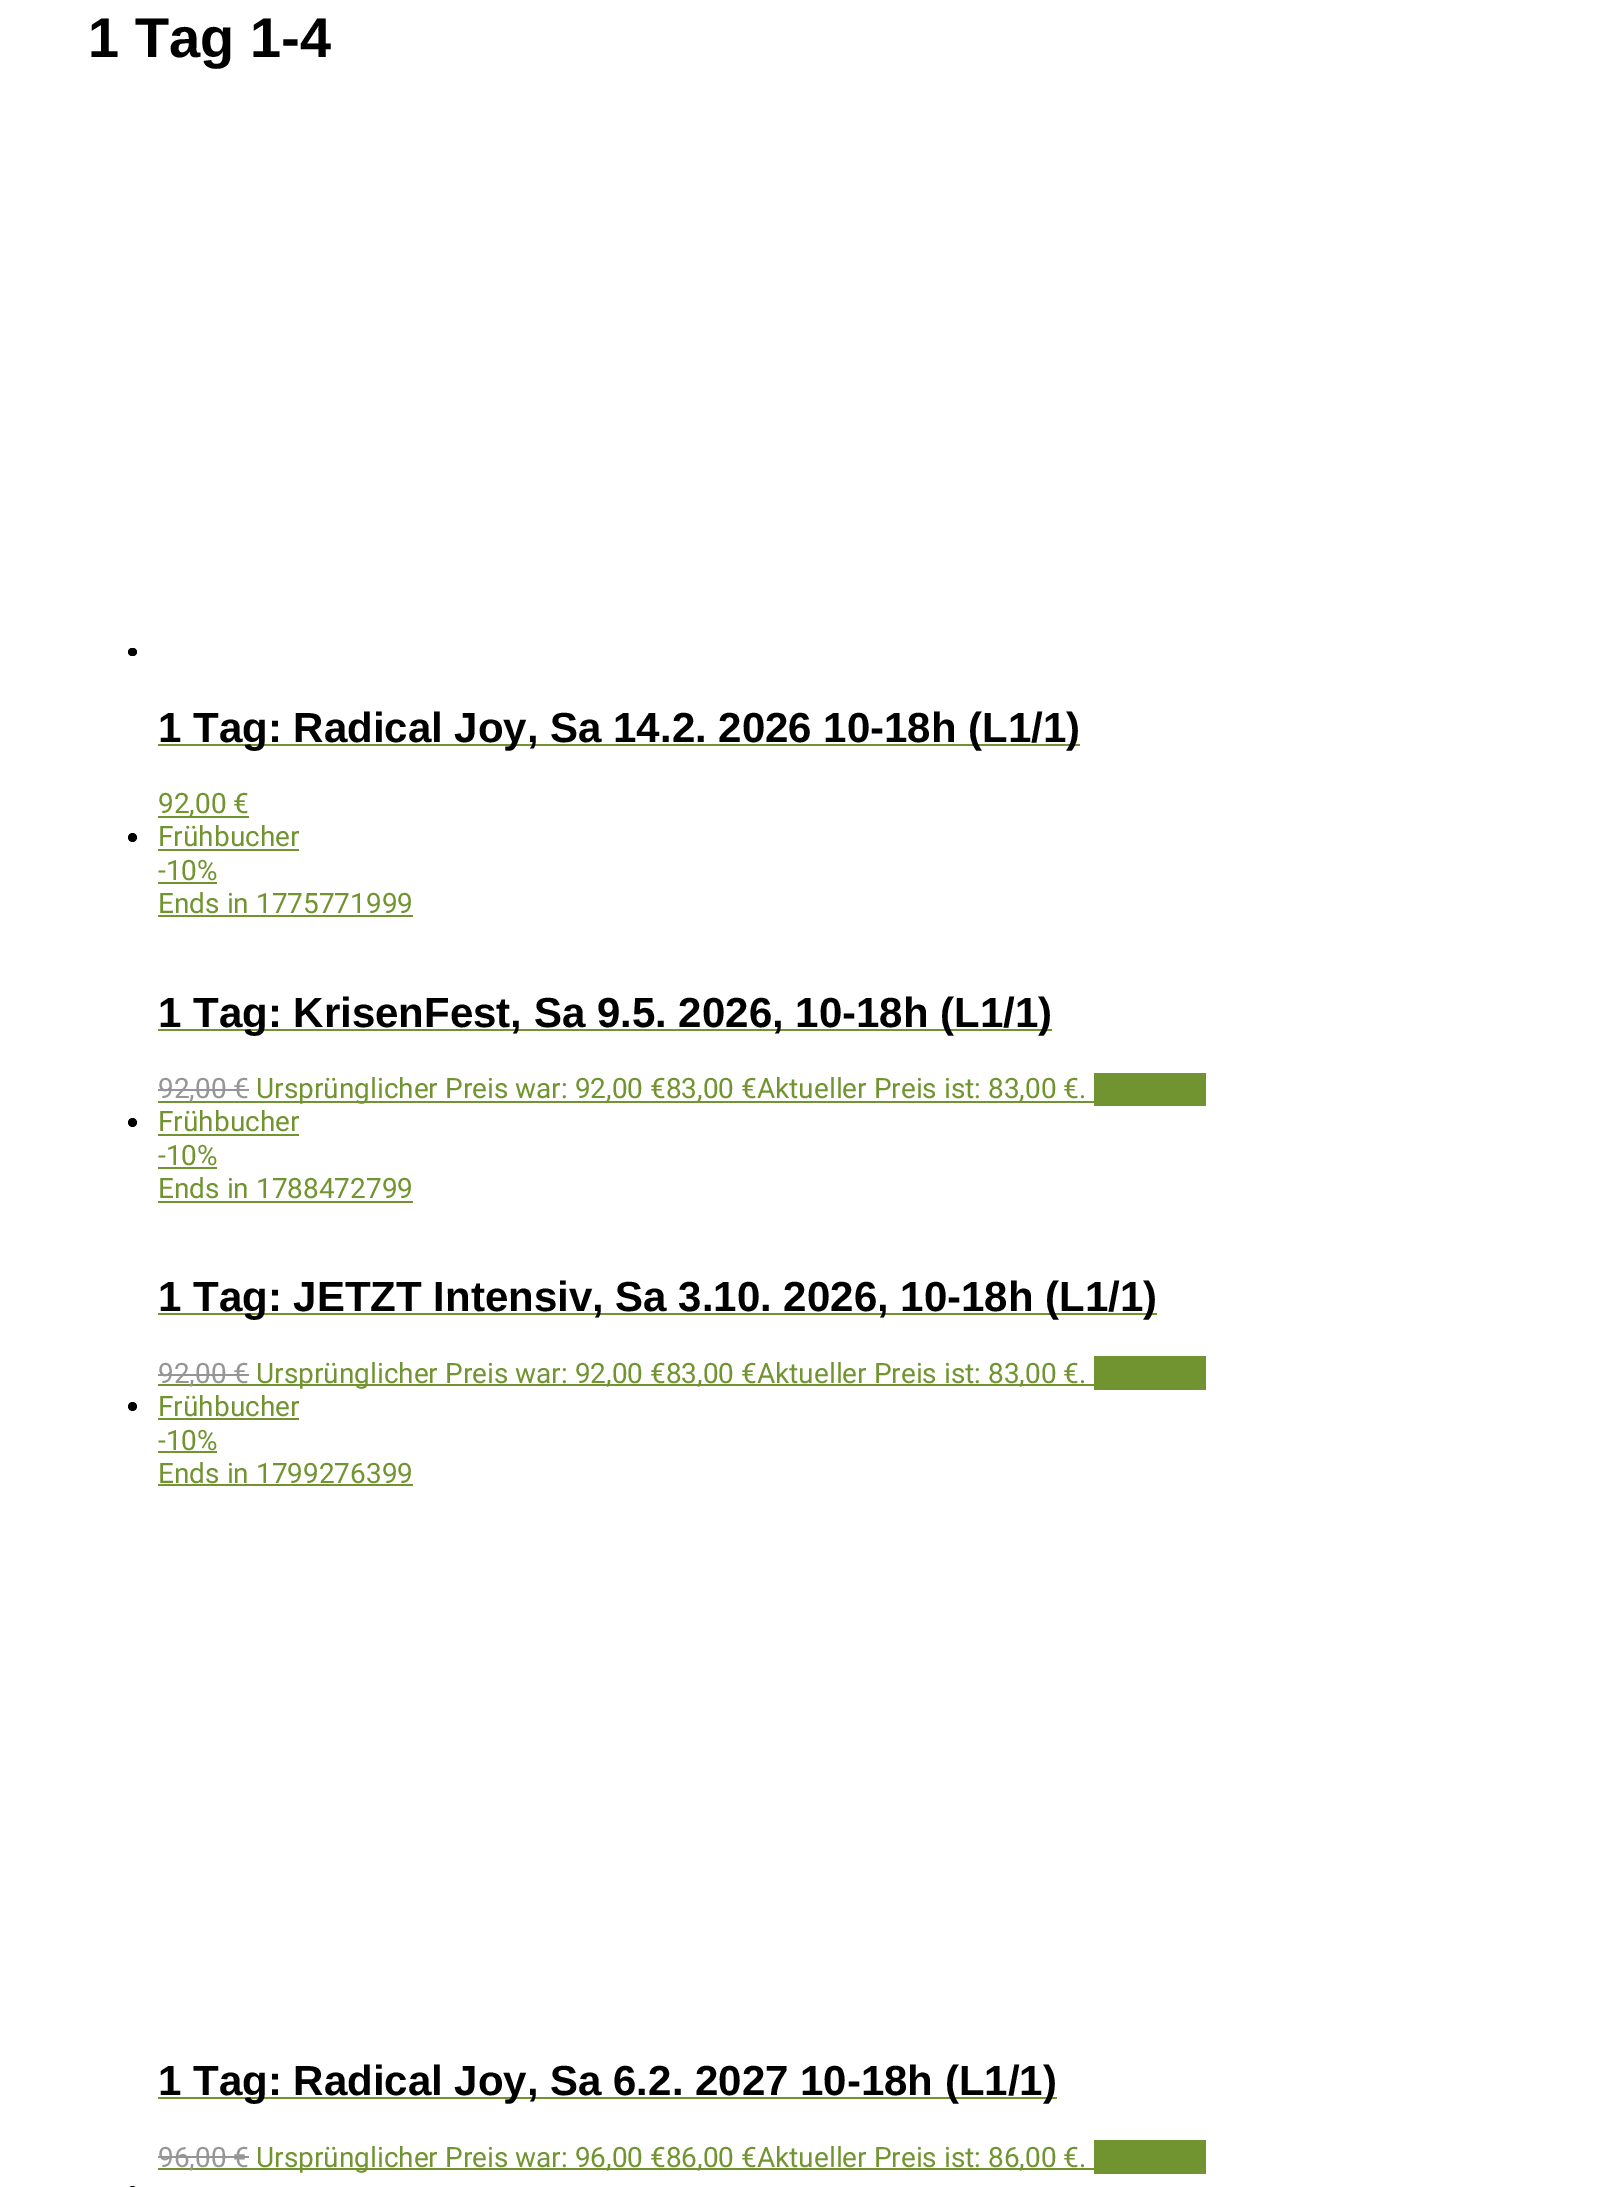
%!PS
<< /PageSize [1611 2187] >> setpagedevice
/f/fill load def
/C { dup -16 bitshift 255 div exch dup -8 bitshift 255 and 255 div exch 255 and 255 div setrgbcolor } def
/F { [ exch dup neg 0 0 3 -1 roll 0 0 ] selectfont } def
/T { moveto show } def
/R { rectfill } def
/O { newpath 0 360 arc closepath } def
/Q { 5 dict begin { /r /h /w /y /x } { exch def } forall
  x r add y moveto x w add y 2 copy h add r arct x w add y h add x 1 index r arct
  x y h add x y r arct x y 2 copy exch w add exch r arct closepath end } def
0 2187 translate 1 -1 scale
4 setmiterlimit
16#FFFFFF C
0 0 1611 2187 R
/LiberationSans-Bold 56 F
16#000000 C
(1 Tag 1-4) 88 57 T
128 648 9 8 4 Q f
16#719430 C
158 744 922 2 R
/LiberationSans-Bold 42 F
16#000000 C
(1 Tag: Radical Joy, Sa 14.2. 2026 10-18h \(L1/1\)) 158 742 T
16#719430 C
158 816 91 2 R
/Roboto-Regular 28 F
(92,00 €) 158 813 T
16#000000 C
132.5 837.5 4.5 O f
16#719430 C
(Frühbucher) 158 846 T
158 849 141 2 R
(-10%) 158 880 T
158 882 59 2 R
(Ends in 1775771999) 158 913 T
158 915 255 2 R
158 1029 894 2 R
/LiberationSans-Bold 42 F
16#000000 C
(1 Tag: KrisenFest, Sa 9.5. 2026, 10-18h \(L1/1\)) 158 1027 T
16#719430 C
158 1101 936 2 R
/Roboto-Regular 28 F
16#969696 C
(92,00 €) 158 1098 T
158 1089 91 2 R
16#719430 C
(Ursprünglicher Preis war: 92,00 €83,00 €Aktueller Preis ist: 83,00 €.) 256 1098 T
1094 1073 112 33 R
16#000000 C
132.5 1122.5 4.5 O f
16#719430 C
(Frühbucher) 158 1131 T
158 1134 141 2 R
(-10%) 158 1165 T
158 1167 59 2 R
(Ends in 1788472799) 158 1198 T
158 1201 255 2 R
158 1313 999 2 R
/LiberationSans-Bold 42 F
16#000000 C
(1 Tag: JETZT Intensiv, Sa 3.10. 2026, 10-18h \(L1/1\)) 158 1311 T
16#719430 C
158 1384 936 2 R
/Roboto-Regular 28 F
16#969696 C
(92,00 €) 158 1383 T
158 1374 91 2 R
16#719430 C
(Ursprünglicher Preis war: 92,00 €83,00 €Aktueller Preis ist: 83,00 €.) 256 1383 T
1094 1356 112 34 R
16#000000 C
132.5 1406.5 4.5 O f
16#719430 C
(Frühbucher) 158 1416 T
158 1418 141 2 R
(-10%) 158 1450 T
158 1451 59 2 R
(Ends in 1799276399) 158 1483 T
158 1484 255 2 R
158 2097 899 2 R
/LiberationSans-Bold 42 F
16#000000 C
(1 Tag: Radical Joy, Sa 6.2. 2027 10-18h \(L1/1\)) 158 2095 T
16#719430 C
158 2168 936 2 R
/Roboto-Regular 28 F
16#969696 C
(96,00 €) 158 2167 T
158 2156 91 2 R
16#719430 C
(Ursprünglicher Preis war: 96,00 €86,00 €Aktueller Preis ist: 86,00 €.) 256 2167 T
1094 2140 112 34 R
16#000000 C
128 2186 9 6 4.5 Q f
showpage
